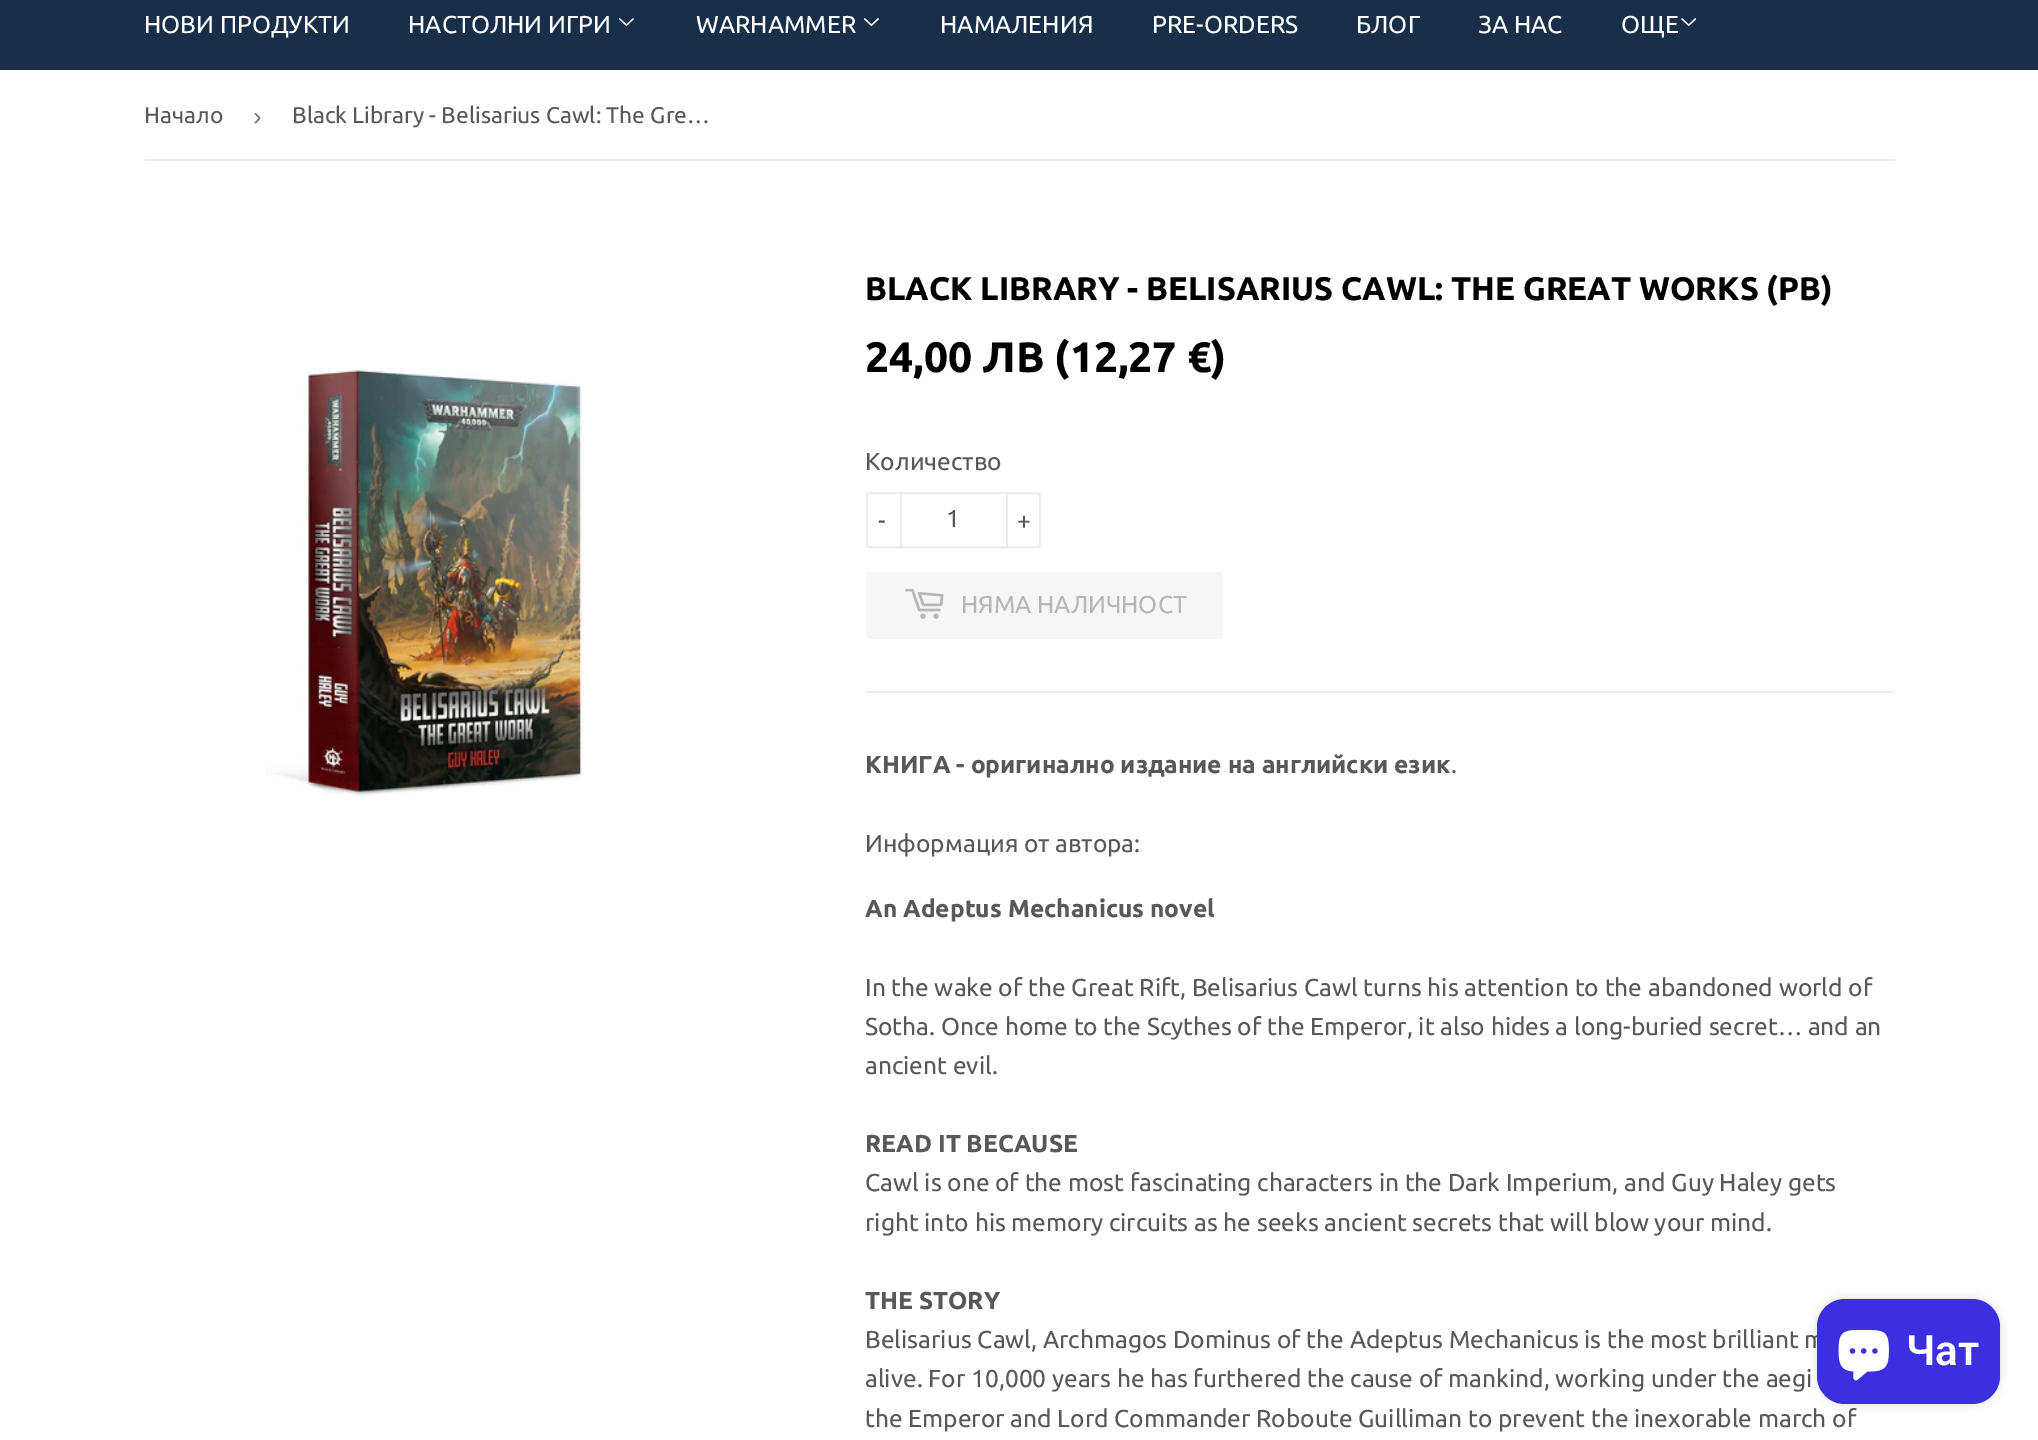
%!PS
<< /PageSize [2038 1440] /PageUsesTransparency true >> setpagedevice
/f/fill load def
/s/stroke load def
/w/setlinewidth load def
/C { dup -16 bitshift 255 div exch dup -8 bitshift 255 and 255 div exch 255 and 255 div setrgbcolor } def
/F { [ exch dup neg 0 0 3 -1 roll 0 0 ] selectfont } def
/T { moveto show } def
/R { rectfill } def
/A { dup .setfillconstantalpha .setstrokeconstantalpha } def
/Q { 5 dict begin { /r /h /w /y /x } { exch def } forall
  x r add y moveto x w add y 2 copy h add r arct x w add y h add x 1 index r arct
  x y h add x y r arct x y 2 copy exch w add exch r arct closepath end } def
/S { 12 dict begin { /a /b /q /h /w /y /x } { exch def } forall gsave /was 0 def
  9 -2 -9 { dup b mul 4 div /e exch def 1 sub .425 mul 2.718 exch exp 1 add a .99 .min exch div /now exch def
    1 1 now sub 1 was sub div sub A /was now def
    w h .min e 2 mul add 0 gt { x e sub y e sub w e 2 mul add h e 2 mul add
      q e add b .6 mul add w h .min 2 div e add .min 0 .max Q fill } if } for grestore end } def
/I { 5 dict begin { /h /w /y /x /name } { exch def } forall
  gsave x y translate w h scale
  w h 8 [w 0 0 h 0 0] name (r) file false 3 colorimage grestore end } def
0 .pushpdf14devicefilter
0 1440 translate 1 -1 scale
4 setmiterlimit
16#FFFFFF C
0 0 2038 1440 R
16#182E49 C
0 0 2038 70 R
/Ubuntu-Regular 24.5 F
16#FFFFFF C
(НОВИ ПРОДУКТИ) 144 33 T
(HАСТОЛНИ ИГРИ) 408 33 T
(1.rgb) 619 18 15 9 I
(WARHAMMER) 696 33 T
(1.rgb) 864 18 15 9 I
(НАМАЛЕНИЯ) 940 33 T
(PRE-ORDERS) 1152 33 T
(БЛОГ) 1356 33 T
(ЗА НАС) 1478 33 T
(ОЩЕ) 1621 33 T
(2.rgb) 1681 18 16 9 I
16#ECECEC C
145 159 1750 2 R
/Ubuntu-Regular 22.75 F
16#585858 C
(Начало) 144 123 T
/LiberationSans-Regular 26 F
16#767676 C
(›) 253 125 T
/Ubuntu-Regular 22.75 F
16#585858 C
(Black Library - Belisarius Cawl: The Gre…) 292 123 T
(3.rgb) 265 370 319 427 I
/Ubuntu-Bold 32.65 F
16#000000 C
(BLACK LIBRARY - BELISARIUS CAWL: THE GREAT WORKS \(PB\)) 865 300 T
/Ubuntu-Bold 42.5 F
(24,00 ЛВ \(12,27 €\)) 865 372 T
/Ubuntu-Regular 24.5 F
16#585858 C
(Количество) 865 470 T
16#ECECEC C
2 w
867 493 173 54 3 Q s
900 492 2 56 R
16#585858 C
(-) 878 529 T
(1) 946 527 T
16#ECECEC C
1006 492 2 56 R
16#585858 C
(+) 1017 529 T
16#F6F6F6 C
866 572 357 67 4 Q f
(4.rgb) 905 588 39 31 I
16#B6B6B6 C
(НЯМА НАЛИЧНОСТ) 961 613 T
16#ECECEC C
866 691 1029 2 R
/Ubuntu-Bold 24.5 F
16#585858 C
(КНИГА - оригинално издание на английски език) 865 773 T
/Ubuntu-Regular 24.5 F
(.) 1451 773 T
(Информация от автора:) 865 852 T
/Ubuntu-Bold 24.5 F
(An Adeptus Mechanicus novel) 865 917 T
/Ubuntu-Regular 24.5 F
(In the wake of the Great Rift, Belisarius Cawl turns his attention to the abandoned world of) 865 996 T
(Sotha. Once home to the Scythes of the Emperor, it also hides a long-buried secret… and an) 865 1035 T
(ancient evil.) 865 1074 T
/Ubuntu-Bold 24.5 F
(READ IT BECAUSE) 865 1152 T
/Ubuntu-Regular 24.5 F
(Cawl is one of the most fascinating characters in the Dark Imperium, and Guy Haley gets) 865 1191 T
(right into his memory circuits as he seeks ancient secrets that will blow your mind.) 865 1231 T
/Ubuntu-Bold 24.5 F
(THE STORY) 865 1309 T
/Ubuntu-Regular 24.5 F
(Belisarius Cawl, Archmagos Dominus of the Adeptus Mechanicus is the most brilliant m) 865 1348 T
(alive. For 10,000 years he has furthered the cause of mankind, working under the aegi) 865 1387 T
(the Emperor and Lord Commander Roboute Guilliman to prevent the inexorable march of) 865 1427 T
16#000000 C
1817 1299 183 105 28 4.5 .15 S
16#3C2FDF C
1817 1299 183 105 28 Q f
(5.rgb) 1838 1330 51 51 I
/Roboto-SemiBold 42 F
16#FFFFFF C
(Чат) 1906 1365 T
.poppdf14devicefilter showpage
